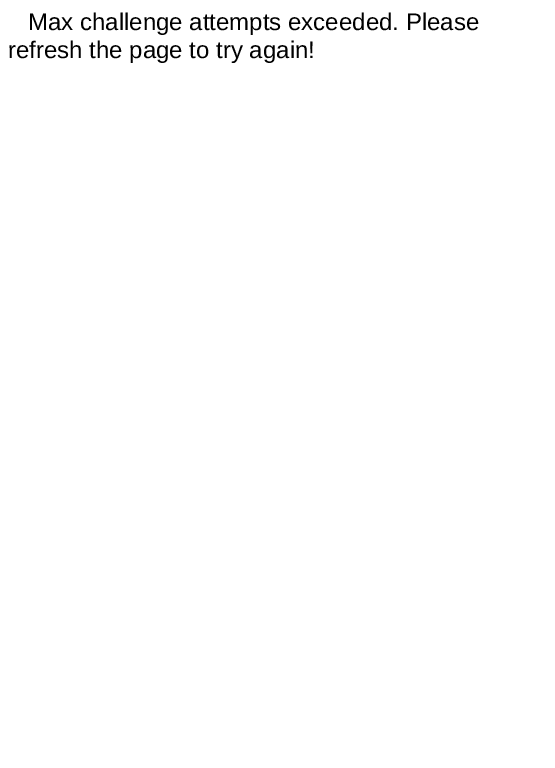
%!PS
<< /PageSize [555 768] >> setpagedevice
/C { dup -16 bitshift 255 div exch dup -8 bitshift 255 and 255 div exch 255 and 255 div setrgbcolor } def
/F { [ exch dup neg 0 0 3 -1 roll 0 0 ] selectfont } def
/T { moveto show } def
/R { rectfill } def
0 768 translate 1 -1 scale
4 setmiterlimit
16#FFFFFF C
0 0 555 768 R
/LiberationSans-Regular 24 F
16#000000 C
(Max challenge attempts exceeded. Please) 28 30 T
(refresh the page to try again!) 8 58 T
showpage
